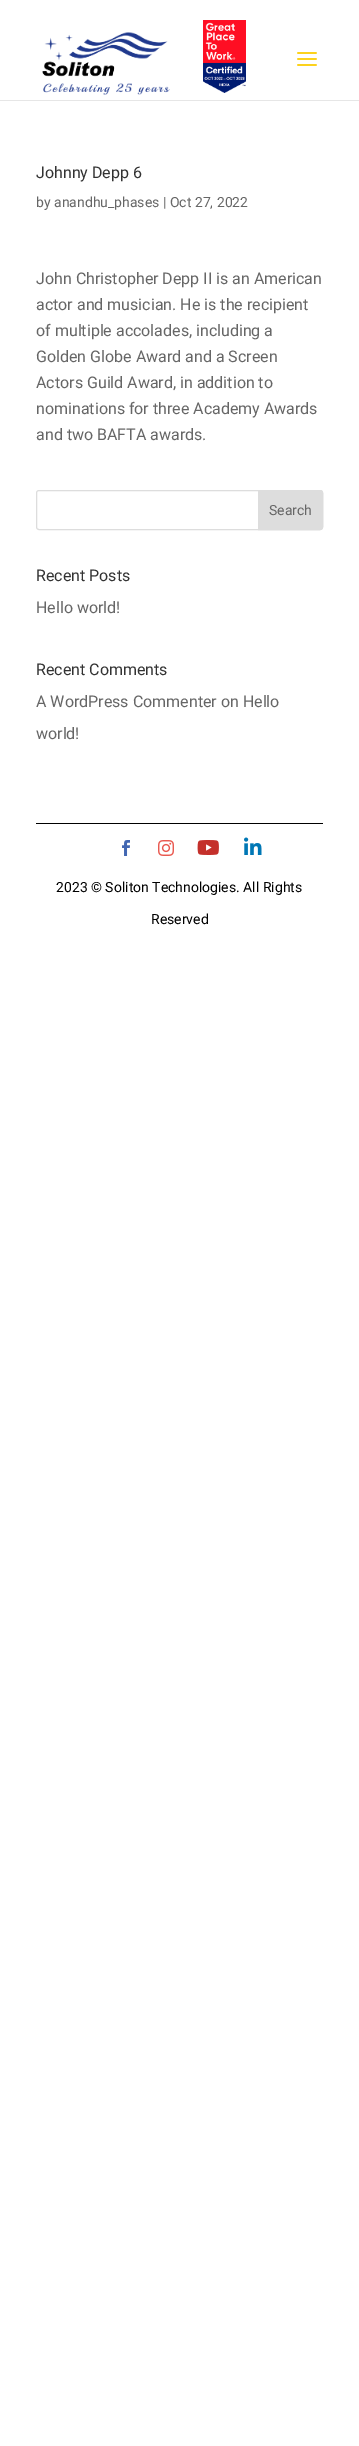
%!PS
<< /PageSize [359 2446] >> setpagedevice
/m/moveto load def
/l/rlineto load def
/c/rcurveto load def
/z/closepath load def
/f/fill load def
/s/stroke load def
/q/gsave load def
/Q_/grestore load def
/C { dup -16 bitshift 255 div exch dup -8 bitshift 255 and 255 div exch 255 and 255 div setrgbcolor } def
/F { [ exch dup neg 0 0 3 -1 roll 0 0 ] selectfont } def
/T { moveto show } def
/R { rectfill } def
/Q { 5 dict begin { /r /h /w /y /x } { exch def } forall
  x r add y moveto x w add y 2 copy h add r arct x w add y h add x 1 index r arct
  x y h add x y r arct x y 2 copy exch w add exch r arct closepath end } def
/I { 5 dict begin { /h /w /y /x /name } { exch def } forall
  gsave x y translate w h scale
  w h 8 [w 0 0 h 0 0] name (r) file false 3 colorimage grestore end } def
0 2446 translate 1 -1 scale
4 setmiterlimit
16#FFFFFF C
0 0 359 2446 R
16#E6E6E6 C
0 100 359 1 R
(1.rgb) 42 32 128 63 I
(2.rgb) 203 20 43 73 I
(3.rgb) 297 52 20 14 I
/Roboto-Regular 16 F
16#333333 C
(Johnny Depp 6) 36 178 T
/Roboto-Regular 14 F
16#666666 C
(by anandhu_phases | Oct 27, 2022) 36 207 T
/Roboto-Regular 16 F
(John Christopher Depp II is an American) 36 284 T
(actor and musician. He is the recipient) 36 310 T
(of multiple accolades, including a) 36 336 T
(Golden Globe Award and a Screen) 36 362 T
(Actors Guild Award, in addition to) 36 388 T
(nominations for three Academy Awards) 36 414 T
(and two BAFTA awards.) 36 440 T
16#DDDDDD C
36.5 490.5 286 39 2.5 Q s
258.5 490.5 m 61.5 0 l 1.5 0 2.5 1 2.5 2.5 c 0 34 l 0 1.5 -1 2.5 -2.5 2.5 c -61.5 0 l z q f Q_
s
/Roboto-Regular 14 F
16#666666 C
(Search) 269 515 T
/Roboto-Regular 16 F
16#333333 C
(Recent Posts) 36 581 T
16#666666 C
(Hello world!) 36 613 T
16#333333 C
(Recent Comments) 36 675 T
16#666666 C
(A WordPress Commenter on Hello) 36 707 T
(world!) 36 739 T
16#000000 C
36 823 287 1 R
(4.rgb) 122 840 8 16 I
(5.rgb) 158 840 16 16 I
(6.rgb) 197 840 22 15 I
(7.rgb) 244 837 18 18 I
/Roboto-Regular 14 F
(2023 © Soliton Technologies. All Rights) 56 892 T
(Reserved) 151 924 T
showpage
